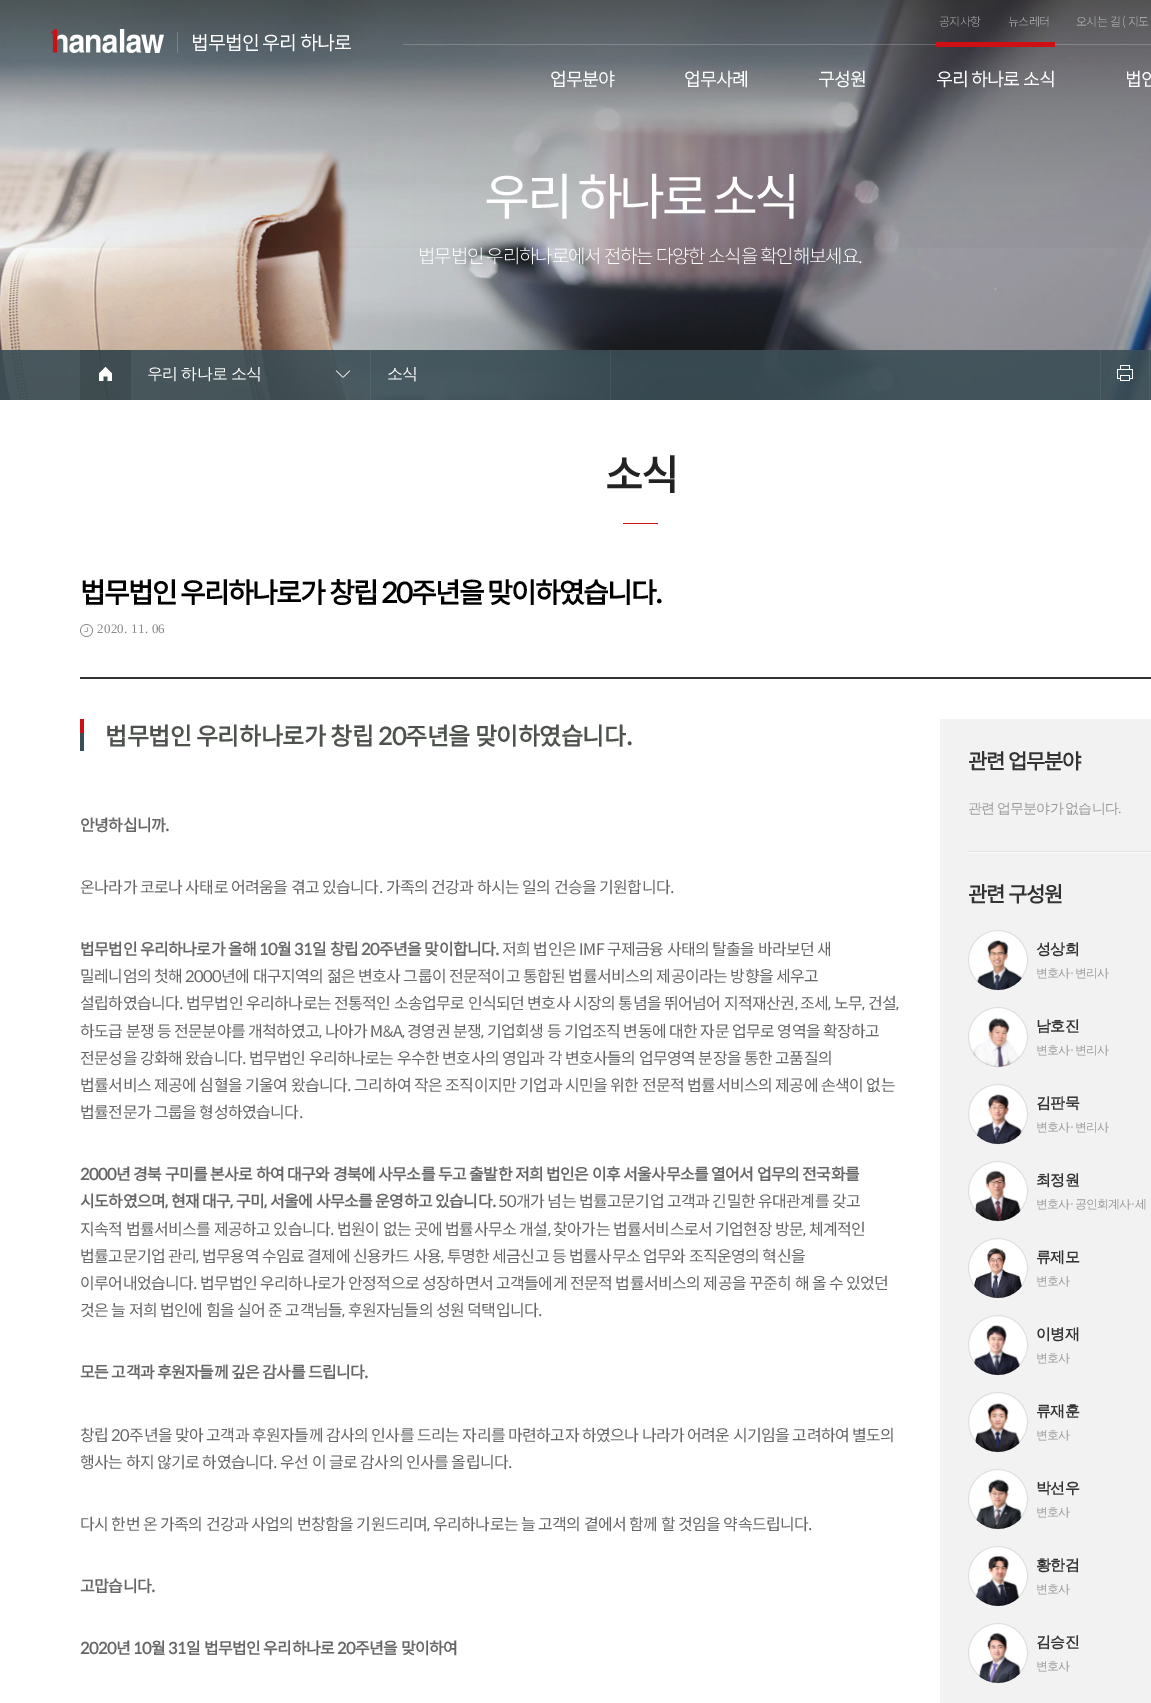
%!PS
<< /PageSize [1151 1703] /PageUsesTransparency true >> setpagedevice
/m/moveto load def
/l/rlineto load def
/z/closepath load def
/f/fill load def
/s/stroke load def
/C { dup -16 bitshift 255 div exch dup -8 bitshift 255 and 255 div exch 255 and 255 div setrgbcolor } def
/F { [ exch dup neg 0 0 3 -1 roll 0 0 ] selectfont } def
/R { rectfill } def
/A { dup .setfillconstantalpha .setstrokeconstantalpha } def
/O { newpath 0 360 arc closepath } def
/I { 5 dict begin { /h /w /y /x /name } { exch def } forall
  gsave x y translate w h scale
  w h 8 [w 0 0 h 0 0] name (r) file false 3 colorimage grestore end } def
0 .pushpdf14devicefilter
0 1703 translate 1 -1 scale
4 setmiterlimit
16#FFFFFF C
0 0 1151 1703 R
(2.rgb) 0 0 1151 400 I
(3.rgb) 0 0 1151 248 I
(1.rgb) 51 29 113 24 I
0.2 A
177 32 1 21 R
/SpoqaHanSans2-Bold 19 F
1 A
191 50 m -.55 0 (법무법인 우리 하나로) ashow
0.2 A
403 44 748 1 R
/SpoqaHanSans-Light 12 F
1 A
16#AFAFB0 C
939 26 m -.55 0 (공지사항) ashow
16#B7B7B8 C
1008 26 m -.55 0 (뉴스레터) ashow
16#BEBDBE C
1076 26 m -.55 0 (오시는 길 \( 지도) ashow
/SpoqaHanSans2-Bold 18 F
16#FFFFFF C
550 86 m -.55 0 (업무분야) ashow
684 86 m -.55 0 (업무사례) ashow
818 86 m -.55 0 (구성원) ashow
16#CE0F13 C
936 42 119 5 R
16#FFFFFF C
936 86 m -.55 0 (우리 하나로 소식) ashow
1125 86 m -.55 0 (법인) ashow
/SpoqaHanSans-Regular 50 F
484 215 m -3.5 0 (우리 하나로 소식) ashow
/SpoqaHanSans-Light 19 F
418 263 m -1.15 0 (법무법인 우리하나로에서 전하는 다양한 소식을 확인해보세요.) ashow
0.9 A
16#3A4D55 C
0 350 1151 50 R
0.12 A
16#000000 C
80 350 51 50 R
1 A
(4.rgb) 99 367 13 14 I
0.06 A
16#FFFFFF C
370 350 1 50 R
/WenQuanYiZenHei-Medium 16 F
1 A
147 379 m -1 0 32 -.55 0 (우리 하나로 소식) awidthshow
336.5 370.5 m 6.5 6.5 l -.5 .5 l -6.5 -6.5 l z 343 377 m 6.5 -6.5 l .5 .5 l -6.5 6.5 l z f
0.06 A
610 350 1 50 R
1 A
387 379 m -.55 0 (소식) ashow
0.06 A
1149 350 1 50 R
1 A
16#4D5D65 C
1100 350 1 50 R
(5.rgb) 1117 365 16 16 I
/SpoqaHanSans-Bold 41 F
16#222222 C
605 490 m -2 0 (소식) ashow
16#CE0F13 C
623 523 35 1 R
16#333333 C
80 677 1071 2 R
/SpoqaHanSans-Bold 28 F
16#000000 C
80 603 m -1.8 0 (법무법인 우리하나로가 창립 20주년을 맞이하였습니다.) ashow
(6.rgb) 80 624 13 13 I
/LiberationSerif-Regular 13 F
16#888888 C
97 633 m .25 0 (2020. 11. 06) ashow
16#CE0F13 C
80 719 4 14 R
/SpoqaHanSans-Bold 24 F
16#4D524D C
105 745 m -.55 0 (법무법인 우리하나로가 창립 20주년을 맞이하였습니다.) ashow
16#3A4D55 C
80 733 4 18 R
/SpoqaHanSans-Bold 16 F
16#666666 C
80 831 m -.55 0 (안녕하십니까.) ashow
/SpoqaHanSans-Regular 16 F
80 893 m -.55 0 (온나라가 코로나 사태로 어려움을 겪고 있습니다. 가족의 건강과 하시는 일의 건승을 기원합니다.) ashow
/SpoqaHanSans-Bold 16 F
80 955 m -.55 0 (법무법인 우리하나로가 올해 10월 31일 창립 20주년을 맞이합니다.) ashow
/SpoqaHanSans-Regular 16 F
502 955 m -.55 0 (저희 법인은 IMF 구제금융 사태의 탈출을 바라보던 새) ashow
80 982 m -.55 0 (밀레니엄의 첫해 2000년에 대구지역의 젊은 변호사 그룹이 전문적이고 통합된 법률서비스의 제공이라는 방향을 세우고) ashow
80 1009 m -.55 0 (설립하였습니다. 법무법인 우리하나로는 전통적인 소송업무로 인식되던 변호사 시장의 통념을 뛰어넘어 지적재산권, 조세, 노무, 건설,) ashow
80 1037 m -.55 0 (하도급 분쟁 등 전문분야를 개척하였고, 나아가 M&A, 경영권 분쟁, 기업회생 등 기업조직 변동에 대한 자문 업무로 영역을 확장하고) ashow
80 1064 m -.55 0 (전문성을 강화해 왔습니다. 법무법인 우리하나로는 우수한 변호사의 영입과 각 변호사들의 업무영역 분장을 통한 고품질의) ashow
80 1091 m -.55 0 (법률서비스 제공에 심혈을 기울여 왔습니다. 그리하여 작은 조직이지만 기업과 시민을 위한 전문적 법률서비스의 제공에 손색이 없는) ashow
80 1118 m -.55 0 (법률전문가 그룹을 형성하였습니다.) ashow
/SpoqaHanSans-Bold 16 F
80 1180 m -.55 0 (2000년 경북 구미를 본사로 하여 대구와 경북에 사무소를 두고 출발한 저희 법인은 이후 서울사무소를 열어서 업무의 전국화를) ashow
80 1207 m -.55 0 (시도하였으며, 현재 대구, 구미, 서울에 사무소를 운영하고 있습니다.) ashow
/SpoqaHanSans-Regular 16 F
498 1207 m -.55 0 (50개가 넘는 법률고문기업 고객과 긴밀한 유대관계를 갖고) ashow
80 1235 m -.55 0 (지속적 법률서비스를 제공하고 있습니다. 법원이 없는 곳에 법률사무소 개설, 찾아가는 법률서비스로서 기업현장 방문, 체계적인) ashow
80 1262 m -.55 0 (법률고문기업 관리, 법무용역 수임료 결제에 신용카드 사용, 투명한 세금신고 등 법률사무소 업무와 조직운영의 혁신을) ashow
80 1289 m -.55 0 (이루어내었습니다. 법무법인 우리하나로가 안정적으로 성장하면서 고객들에게 전문적 법률서비스의 제공을 꾸준히 해 올 수 있었던) ashow
80 1316 m -.55 0 (것은 늘 저희 법인에 힘을 실어 준 고객님들, 후원자님들의 성원 덕택입니다.) ashow
/SpoqaHanSans-Bold 16 F
80 1378 m -.55 0 (모든 고객과 후원자들께 깊은 감사를 드립니다.) ashow
/SpoqaHanSans-Regular 16 F
80 1441 m -.55 0 (창립 20주년을 맞아 고객과 후원자들께 감사의 인사를 드리는 자리를 마련하고자 하였으나 나라가 어려운 시기임을 고려하여 별도의) ashow
80 1468 m -.55 0 (행사는 하지 않기로 하였습니다. 우선 이 글로 감사의 인사를 올립니다.) ashow
80 1530 m -.55 0 (다시 한번 온 가족의 건강과 사업의 번창함을 기원드리며, 우리하나로는 늘 고객의 곁에서 함께 할 것임을 약속드립니다.) ashow
/SpoqaHanSans-Bold 16 F
80 1592 m -.55 0 (고맙습니다.) ashow
80 1654 m -.55 0 (2020년 10월 31일 법무법인 우리하나로 20주년을 맞이하여) ashow
16#F2F2F2 C
940 719 211 984 R
16#E4E4E4 C
968 851 183 1 R
/SpoqaHanSans-Bold 21 F
16#333333 C
968 769 m -1.25 0 (관련 업무분야) ashow
/WenQuanYiZenHei-Medium 14 F
16#999999 C
968 813 m -1 0 32 -.8 0 (관련 업무분야가 없습니다) awidthshow
/LiberationSerif-Regular 14 F
1118 813 m -.8 0 (.) ashow
16#FBFBFB C
968 852 183 1 R
/SpoqaHanSans-Bold 21 F
16#333333 C
968 902 m -1.25 0 (관련 구성원) ashow
16#FFFFFF C
998 960 30 O f
(7.rgb) 977 940 45 50 I
0.12 A
16#000000 C
998 960 29.5 O s
/WenQuanYiZenHei-Bold 15 F
1 A
16#333333 C
1036 954 m -.55 0 (성상희) ashow
/WenQuanYiZenHei-Medium 12 F
16#999999 C
1036 977 m -1 0 (변호사) ashow
/LiberationSerif-Regular 12 F
1070 977 m -1 0 (·) ashow
/WenQuanYiZenHei-Medium 12 F
1075 977 m -1 0 (변리사) ashow
16#FFFFFF C
998 1037 30 O f
(8.rgb) 973 1018 47 49 I
0.12 A
16#000000 C
998 1037 29.5 O s
/WenQuanYiZenHei-Bold 15 F
1 A
16#333333 C
1036 1031 m -.55 0 (남호진) ashow
/WenQuanYiZenHei-Medium 12 F
16#999999 C
1036 1054 m -1 0 (변호사) ashow
/LiberationSerif-Regular 12 F
1070 1054 m -1 0 (·) ashow
/WenQuanYiZenHei-Medium 12 F
1075 1054 m -1 0 (변리사) ashow
16#FFFFFF C
998 1114 30 O f
(9.rgb) 976 1094 46 50 I
0.12 A
16#000000 C
998 1114 29.5 O s
/WenQuanYiZenHei-Bold 15 F
1 A
16#333333 C
1036 1108 m -.55 0 (김판묵) ashow
/WenQuanYiZenHei-Medium 12 F
16#999999 C
1036 1131 m -1 0 (변호사) ashow
/LiberationSerif-Regular 12 F
1070 1131 m -1 0 (·) ashow
/WenQuanYiZenHei-Medium 12 F
1075 1131 m -1 0 (변리사) ashow
16#FFFFFF C
998 1191 30 O f
(10.rgb) 975 1170 46 51 I
0.12 A
16#000000 C
998 1191 29.5 O s
/WenQuanYiZenHei-Bold 15 F
1 A
16#333333 C
1036 1185 m -.55 0 (최정원) ashow
/WenQuanYiZenHei-Medium 12 F
16#999999 C
1036 1208 m -1 0 (변호사) ashow
/LiberationSerif-Regular 12 F
1070 1208 m -1 0 (·) ashow
/WenQuanYiZenHei-Medium 12 F
1075 1208 m -1 0 (공인회계사) ashow
/LiberationSerif-Regular 12 F
1131 1208 m -1 0 (·) ashow
/WenQuanYiZenHei-Medium 12 F
1135 1208 m -1 0 (세) ashow
16#FFFFFF C
998 1268 30 O f
(11.rgb) 974 1248 48 50 I
0.12 A
16#000000 C
998 1268 29.5 O s
/WenQuanYiZenHei-Bold 15 F
1 A
16#333333 C
1036 1262 m -.55 0 (류제모) ashow
/WenQuanYiZenHei-Medium 12 F
16#999999 C
1036 1285 m -1 0 (변호사) ashow
16#FFFFFF C
998 1345 30 O f
(12.rgb) 974 1325 46 50 I
0.12 A
16#000000 C
998 1345 29.5 O s
/WenQuanYiZenHei-Bold 15 F
1 A
16#333333 C
1036 1339 m -.55 0 (이병재) ashow
/WenQuanYiZenHei-Medium 12 F
16#999999 C
1036 1362 m -1 0 (변호사) ashow
16#FFFFFF C
998 1422 30 O f
(13.rgb) 975 1403 45 49 I
0.12 A
16#000000 C
998 1422 29.5 O s
/WenQuanYiZenHei-Bold 15 F
1 A
16#333333 C
1036 1416 m -.55 0 (류재훈) ashow
/WenQuanYiZenHei-Medium 12 F
16#999999 C
1036 1439 m -1 0 (변호사) ashow
16#FFFFFF C
998 1499 30 O f
(14.rgb) 976 1479 46 50 I
0.12 A
16#000000 C
998 1499 29.5 O s
/WenQuanYiZenHei-Bold 15 F
1 A
16#333333 C
1036 1493 m -.55 0 (박선우) ashow
/WenQuanYiZenHei-Medium 12 F
16#999999 C
1036 1516 m -1 0 (변호사) ashow
16#FFFFFF C
998 1576 30 O f
(15.rgb) 975 1555 45 51 I
0.12 A
16#000000 C
998 1576 29.5 O s
/WenQuanYiZenHei-Bold 15 F
1 A
16#333333 C
1036 1570 m -.55 0 (황한검) ashow
/WenQuanYiZenHei-Medium 12 F
16#999999 C
1036 1593 m -1 0 (변호사) ashow
16#FFFFFF C
998 1653 30 O f
(16.rgb) 979 1632 42 51 I
0.12 A
16#000000 C
998 1653 29.5 O s
/WenQuanYiZenHei-Bold 15 F
1 A
16#333333 C
1036 1647 m -.55 0 (김승진) ashow
/WenQuanYiZenHei-Medium 12 F
16#999999 C
1036 1670 m -1 0 (변호사) ashow
.poppdf14devicefilter showpage
